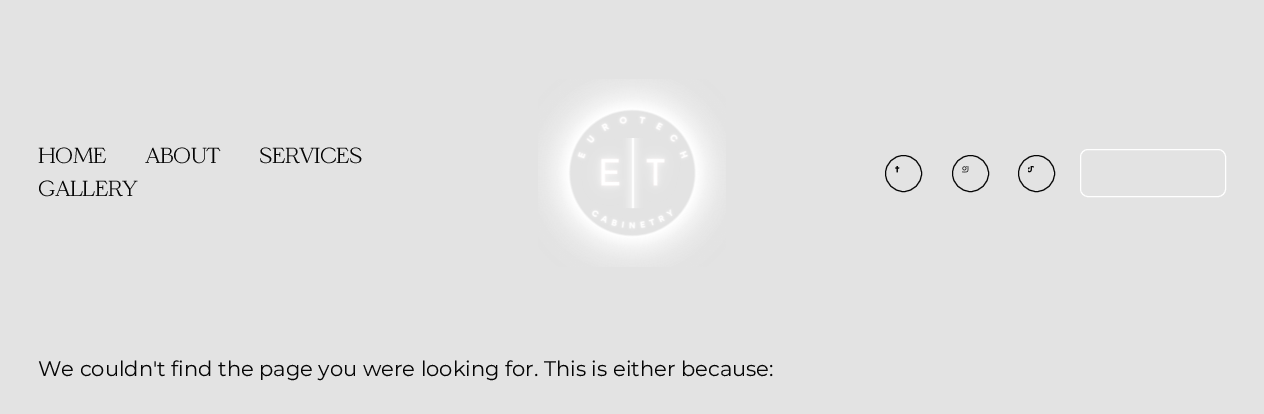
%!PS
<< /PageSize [1264 414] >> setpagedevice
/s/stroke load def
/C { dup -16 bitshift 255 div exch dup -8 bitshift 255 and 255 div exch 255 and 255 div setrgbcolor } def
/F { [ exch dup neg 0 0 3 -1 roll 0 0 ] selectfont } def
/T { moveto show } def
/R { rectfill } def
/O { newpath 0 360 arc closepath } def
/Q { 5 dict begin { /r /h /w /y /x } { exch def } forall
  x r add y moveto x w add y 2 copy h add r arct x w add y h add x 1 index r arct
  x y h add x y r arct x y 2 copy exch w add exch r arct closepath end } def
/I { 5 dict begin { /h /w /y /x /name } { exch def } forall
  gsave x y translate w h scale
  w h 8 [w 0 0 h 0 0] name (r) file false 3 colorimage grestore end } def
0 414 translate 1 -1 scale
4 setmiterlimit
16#E3E3E3 C
0 0 1264 414 R
/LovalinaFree-Bold 21.05 F
16#050505 C
(HOME) 38 163 T
(ABOUT) 145 163 T
(SERVICES) 259 163 T
(GALLERY) 38 196 T
(1.rgb) 538 79 188 188 I
903.5 173.5 18 O s
(2.rgb) 895 166 5 7 I
970.5 173.5 18 O s
(3.rgb) 962 166 7 7 I
1036.5 173.5 18 O s
(4.rgb) 1028 166 6 7 I
16#FFFFFF C
1080.5 149.5 145 47 7.5 Q s
/Montserrat-Regular 21.05 F
16#050505 C
(We couldn't find the page you were looking for. This is either because:) 38 376 T
showpage
